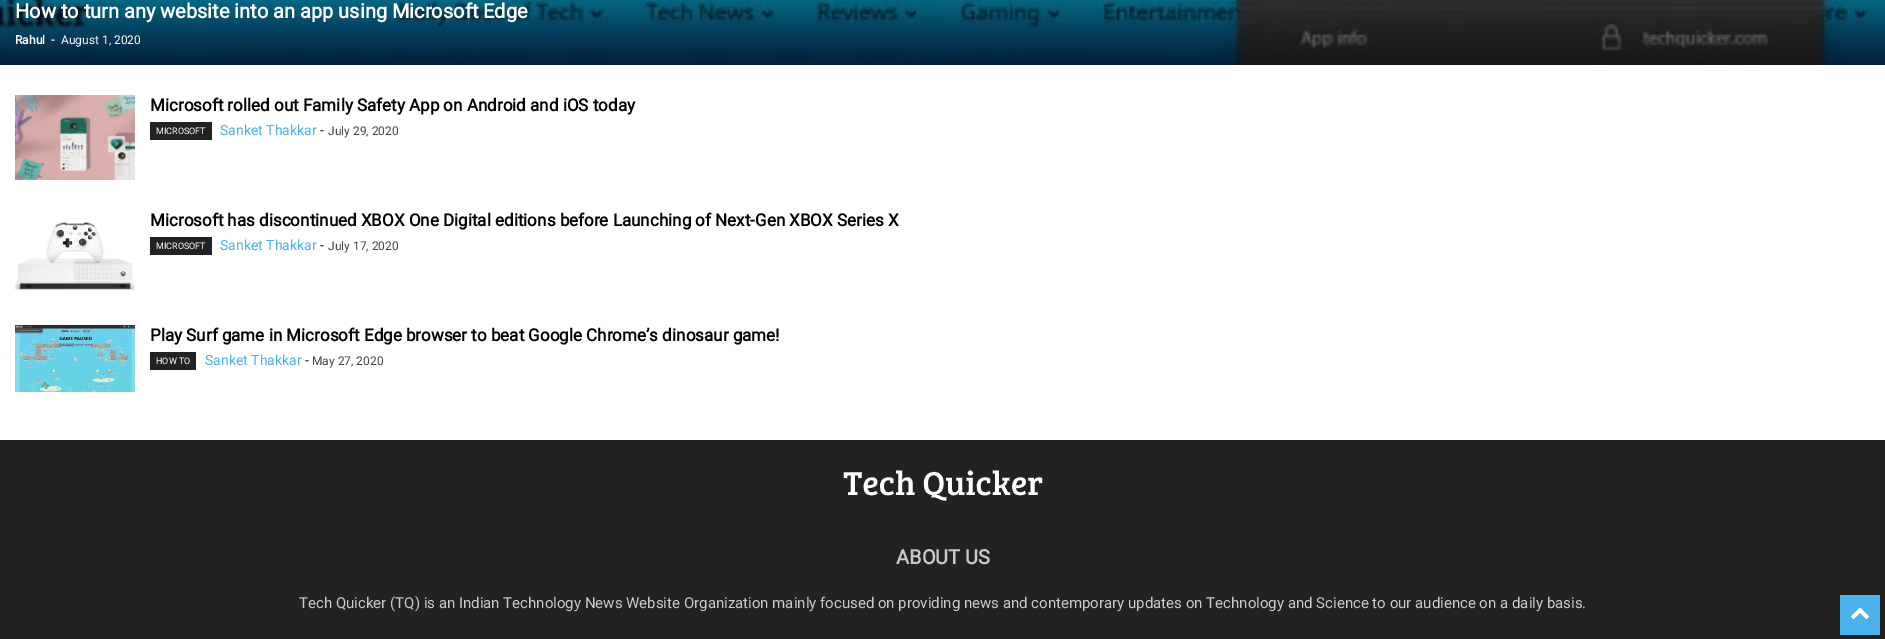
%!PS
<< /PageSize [1885 639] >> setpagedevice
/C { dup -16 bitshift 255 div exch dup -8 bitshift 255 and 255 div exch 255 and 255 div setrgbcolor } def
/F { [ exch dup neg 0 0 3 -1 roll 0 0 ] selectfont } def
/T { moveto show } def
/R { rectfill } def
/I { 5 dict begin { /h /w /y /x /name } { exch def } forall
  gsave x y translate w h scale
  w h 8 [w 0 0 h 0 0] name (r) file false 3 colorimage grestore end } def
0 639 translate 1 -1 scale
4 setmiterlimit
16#FFFFFF C
0 0 1885 639 R
(1.rgb) 0 0 1885 65 I
/Roboto-Bold 20 F
(How to turn any website into an app using Microsoft Edge) 15 18 T
/Roboto-Bold 12 F
(Rahul) 15 44 T
(-) 51 44 T
/Roboto-Regular 12 F
(August 1, 2020) 61 44 T
(2.rgb) 15 95 120 85 I
/Roboto-Bold 17 F
16#000000 C
(Microsoft rolled out Family Safety App on Android and iOS today) 150 111 T
16#222222 C
150 122 62 18 R
/Roboto-Regular 9 F
16#FFFFFF C
(MICROSOFT) 156 134 T
/Roboto-Regular 14 F
16#4DB2EC C
(Sanket Thakkar) 220 135 T
16#000000 C
(-) 320 135 T
/Roboto-Regular 12 F
16#444444 C
(July 29, 2020) 328 135 T
(3.rgb) 15 221 120 70 I
/Roboto-Bold 17 F
16#000000 C
(Microsoft has discontinued XBOX One Digital editions before Launching of Next-Gen XBOX Series X) 150 226 T
16#222222 C
150 237 62 18 R
/Roboto-Regular 9 F
16#FFFFFF C
(MICROSOFT) 156 249 T
/Roboto-Regular 14 F
16#4DB2EC C
(Sanket Thakkar) 220 250 T
16#000000 C
(-) 320 250 T
/Roboto-Regular 12 F
16#444444 C
(July 17, 2020) 328 250 T
(4.rgb) 15 325 120 67 I
/Roboto-Bold 17 F
16#000000 C
(Play Surf game in Microsoft Edge browser to beat Google Chrome’s dinosaur game!) 150 341 T
16#222222 C
150 352 46 18 R
/Roboto-Regular 9 F
16#FFFFFF C
(HOW TO) 156 364 T
/Roboto-Regular 14 F
16#4DB2EC C
(Sanket Thakkar) 205 365 T
16#000000 C
(-) 305 365 T
/Roboto-Regular 12 F
16#444444 C
(May 27, 2020) 312 365 T
16#222222 C
0 440 1885 199 R
(5.rgb) 843 470 200 31 I
/Roboto-Bold 20 F
16#CACACA C
(ABOUT US) 896 564 T
/Roboto-Regular 15 F
(Tech Quicker \(TQ\) is an Indian Technology News Website Organization mainly focused on providing news and contemporary updates on Technology and Science to our audience on a daily basis.) 299 608 T
16#4DB2EC C
1840 595 40 40 R
(6.rgb) 1851 607 18 13 I
showpage
